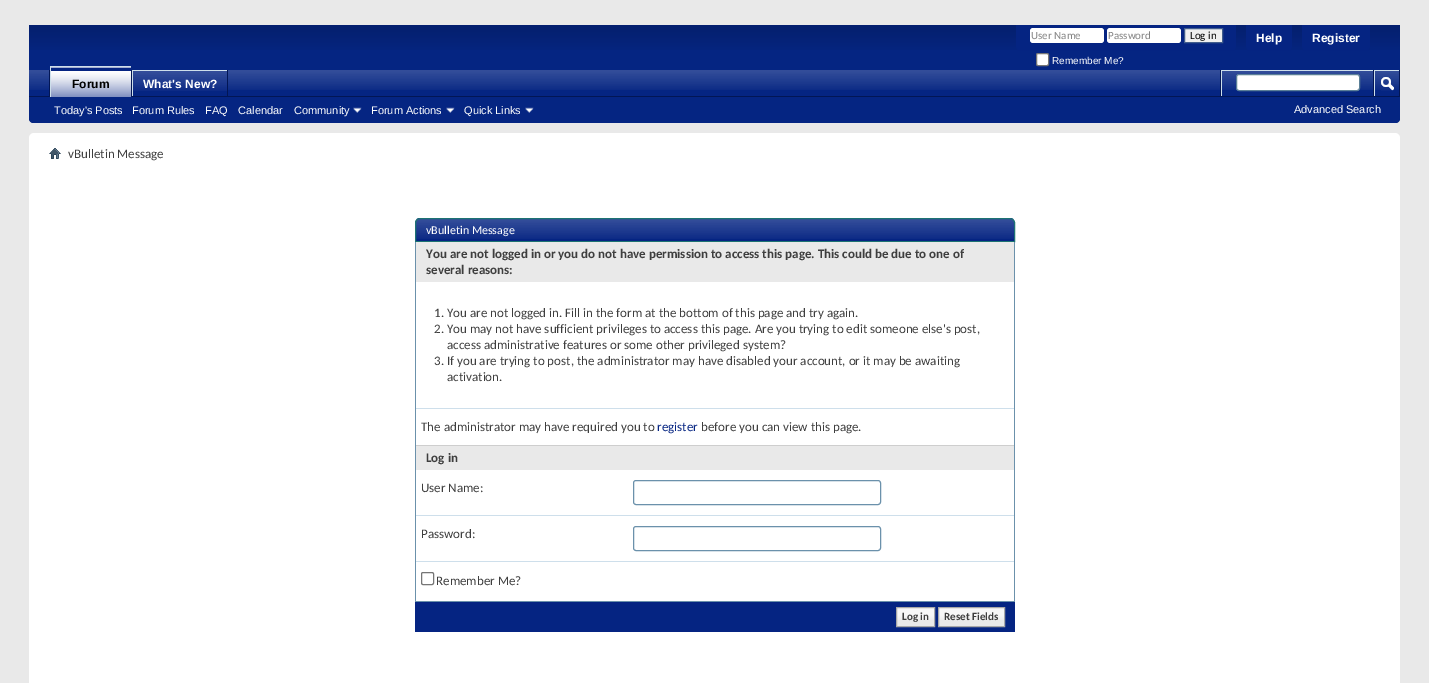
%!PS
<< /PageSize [1429 683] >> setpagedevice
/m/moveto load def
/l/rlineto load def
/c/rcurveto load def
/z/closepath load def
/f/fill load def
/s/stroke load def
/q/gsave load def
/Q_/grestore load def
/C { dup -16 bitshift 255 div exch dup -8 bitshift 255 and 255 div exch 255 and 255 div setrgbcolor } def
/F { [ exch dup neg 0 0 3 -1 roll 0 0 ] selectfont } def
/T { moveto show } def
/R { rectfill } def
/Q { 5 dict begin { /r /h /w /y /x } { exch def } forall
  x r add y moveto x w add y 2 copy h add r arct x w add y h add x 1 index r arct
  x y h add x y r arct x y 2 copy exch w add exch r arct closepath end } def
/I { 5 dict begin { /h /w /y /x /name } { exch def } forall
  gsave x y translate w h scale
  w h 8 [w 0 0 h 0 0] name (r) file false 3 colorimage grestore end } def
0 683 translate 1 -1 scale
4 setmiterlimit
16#E9E9E9 C
0 0 1429 683 R
16#052582 C
29 25 m 1371 0 l 0 93 l 0 3 -2 5 -5 5 c -1361 0 l -3 0 -5 -2 -5 -5 c z f
(1.rgb) 29 25 1371 25 I
16#052482 C
1016 25 m 220 0 l 0 21 l 0 3 -2 5 -5 5 c -210 0 l -3 0 -5 -2 -5 -5 c z f
16#FFFFFF C
1030 28 74 15 3 Q f
/Carlito-Regular 11 F
16#828282 C
(User Name) 1031 39 T
16#FFFFFF C
1107 28 74 15 3 Q f
16#828282 C
(Password) 1108 39 T
16#EFEFEF C
1184.5 28.5 m 38 0 l 0 14 l -38 0 l z q f Q_
16#415D8D C
s
16#000000 C
(Log in) 1190 39 T
16#FFFFFF C
1036.5 53.5 12 12 1.5 Q q f Q_
16#767676 C
s
/LiberationSans-Regular 10 F
16#FFFFFF C
(Remember Me?) 1052 64 T
16#052482 C
1246 25 m 46 0 l 0 21 l 0 3 -2 5 -5 5 c -36 0 l -3 0 -5 -2 -5 -5 c z f
/LiberationSans-Bold 12 F
16#FFFFFF C
(Help) 1256 42 T
16#052482 C
1302 25 m 68 0 l 0 21 l 0 3 -2 5 -5 5 c -58 0 l -3 0 -5 -2 -5 -5 c z f
16#FFFFFF C
(Register) 1312 42 T
16#052582 C
29 70 m 1371 0 l 0 48 l 0 3 -2 5 -5 5 c -1361 0 l -3 0 -5 -2 -5 -5 c z f
(2.rgb) 29 70 1370 20 I
16#021655 C
131 70 1 26 R
49 70 1 26 R
227 70 1 27 R
16#CEDFEB C
132 70 95 1 R
132 70 1 27 R
16#021655 C
29 96 1371 1 R
16#052482 C
51 70 80 27 R
(3.rgb) 51 67 80 30 I
16#CEDFEB C
50 66 81 1 R
50 66 1 31 R
16#000000 C
(Forum) 72 88 T
/LiberationSans-Regular 11 F
16#FFFFFF C
(Today's Posts) 54 114 T
(Forum Rules) 132 114 T
(FAQ) 205 114 T
(Calendar) 238 114 T
(Community) 294 114 T
(4.rgb) 353 107 9 6 I
(Forum Actions) 371 114 T
(4.rgb) 446 107 9 6 I
(Quick Links) 464 114 T
(4.rgb) 525 107 9 6 I
16#052482 C
133 71 94 19 R
(5.rgb) 133 71 94 20 I
/LiberationSans-Bold 12 F
16#FFFFFF C
(What's New?) 143 88 T
16#021655 C
1220 70 1 26 R
16#CEDFEB C
1221 70 152 1 R
1221 70 1 26 R
16#FFFFFF C
1236.5 74.5 123 16 2.5 Q q f Q_
16#5A7F97 C
s
16#021655 C
1399 70 1 26 R
1373 70 1 26 R
16#CEDFEB C
1374 70 25 1 R
1374 70 1 26 R
(6.rgb) 1381 77 13 14 I
/LiberationSans-Regular 11 F
16#FFFFFF C
(Advanced Search) 1294 113 T
29 133 1371 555 5 Q f
(7.rgb) 49 148 12 11 I
/Carlito-Regular 13 F
16#3E3E3E C
(vBulletin Message) 68 158 T
16#052482 C
420 218 m 590 0 l 3 0 5 2 5 5 c 0 19 l -600 0 l 0 -19 l 0 -3 2 -5 5 -5 c z f
(8.rgb) 415 219 600 20 I
16#1D7373 C
420 218.5 m 590 0 l 2.5 0 4.5 2 4.5 4.5 c 0 18.5 l -599 0 l 0 -18.5 l 0 -2.5 2 -4.5 4.5 -4.5 c z s
/Carlito-Regular 12 F
16#FFFFFF C
(vBulletin Message) 426 234 T
16#6B91AB C
1014 242 1 360 R
415 601 600 1 R
415 242 1 360 R
16#E9E9E9 C
416 242 598 40 R
/Carlito-Bold 13 F
16#3E3E3E C
(You are not logged in or you do not have permission to access this page. This could be due to one of) 426 258 T
(several reasons:) 426 274 T
/Carlito-Regular 13 F
(1. You are not logged in. Fill in the form at the bottom of this page and try again.) 434 317 T
(2. You may not have sufficient privileges to access this page. Are you trying to edit someone else's post,) 434 333 T
(access administrative features or some other privileged system?) 447 349 T
(3. If you are trying to post, the administrator may have disabled your account, or it may be awaiting) 434 365 T
(activation.) 447 381 T
16#CEDFEB C
416 408 598 1 R
16#3E3E3E C
(The administrator may have required you to) 421 431 T
16#052482 C
(register) 657 431 T
16#3E3E3E C
(before you can view this page.) 701 431 T
16#E9E9E9 C
416 446 598 24 R
16#CECECE C
416 445 598 1 R
/Carlito-Bold 13 F
16#3E3E3E C
(Log in) 426 462 T
/Carlito-Regular 13 F
(User Name:) 421 492 T
16#6B91AB C
633.5 480.5 247 24 2.5 Q s
16#CEDFEB C
416 515 598 1 R
16#3E3E3E C
(Password:) 421 538 T
16#6B91AB C
633.5 526.5 247 24 2.5 Q s
16#CEDFEB C
416 561 598 1 R
16#767676 C
421.5 572.5 12 12 1.5 Q s
16#3E3E3E C
(Remember Me?) 436 585 T
16#052482 C
415 602 600 30 R
16#E9E9E9 C
897 608 37 18 R
(9.rgb) 897 608 37 12 I
16#A8A8A8 C
896.5 607.5 38 19 rectstroke
/Carlito-Bold 11 F
16#3E3E3E C
(Log in) 902 620 T
16#E9E9E9 C
939 608 65 18 R
(10.rgb) 939 608 65 12 I
16#A8A8A8 C
938.5 607.5 66 19 rectstroke
16#3E3E3E C
(Reset Fields) 944 620 T
showpage
